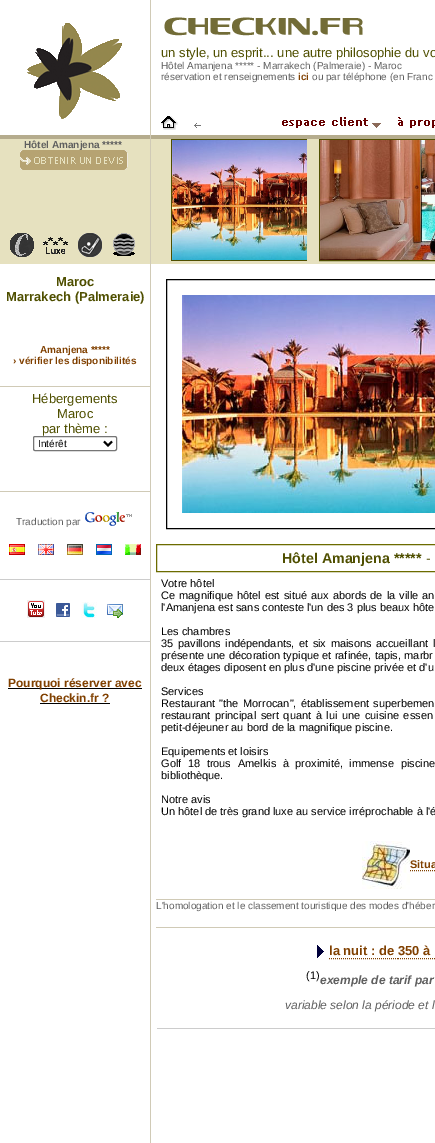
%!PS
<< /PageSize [435 1143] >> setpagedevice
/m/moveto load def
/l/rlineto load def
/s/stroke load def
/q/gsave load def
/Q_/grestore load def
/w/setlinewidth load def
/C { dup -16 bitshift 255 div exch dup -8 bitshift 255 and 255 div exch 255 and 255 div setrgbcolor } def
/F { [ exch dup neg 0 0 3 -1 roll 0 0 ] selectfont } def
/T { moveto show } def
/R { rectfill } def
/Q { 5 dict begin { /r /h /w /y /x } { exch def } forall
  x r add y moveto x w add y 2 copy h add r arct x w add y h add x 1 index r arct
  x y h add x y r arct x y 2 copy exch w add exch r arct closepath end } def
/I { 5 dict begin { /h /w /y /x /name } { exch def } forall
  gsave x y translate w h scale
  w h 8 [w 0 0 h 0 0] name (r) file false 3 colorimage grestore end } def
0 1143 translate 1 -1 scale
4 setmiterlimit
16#FFFFFF C
0 0 435 1143 R
(1.rgb) 27 23 95 96 I
(2.rgb) 164 17 199 19 I
/LiberationSans-Regular 13 F
16#4F4F00 C
(un style, un esprit... une autre philosophie du vo) 161 57 T
/LiberationSans-Regular 10 F
16#5F5F5F C
(Hôtel Amanjena ***** - Marrakech \(Palmeraie\) - Maroc) 161 69 T
(réservation et renseignements) 161 80 T
/LiberationSans-Bold 10 F
16#804000 C
(ici) 298 80 T
/LiberationSans-Regular 10 F
16#5F5F5F C
(ou par téléphone \(en Franc) 312 80 T
(3.rgb) 161 116 17 14 I
(4.rgb) 194 123 7 5 I
(5.rgb) 282 117 99 11 I
(6.rgb) 398 117 37 11 I
16#E6E1BF C
0 139 435 125 R
16#B5AC8D C
0 135 435 4 R
16#D0CAB6 C
150 0 1 1143 R
/LiberationSans-Bold 10 F
16#5F5F5F C
(Hôtel Amanjena *****) 24 148 T
(7.rgb) 20 150 108 20 I
(8.rgb) 10 233 24 24 I
(9.rgb) 43 237 25 17 I
(10.rgb) 78 233 24 24 I
(11.rgb) 113 233 22 23 I
q
171 139 136 122 rectclip
16#4F4F00 C
171.5 139.5 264 121 rectstroke
Q_
(12.rgb) 172 140 135 120 I
16#4F4F00 C
319.5 139.5 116 121 rectstroke
(13.rgb) 320 140 115 120 I
/LiberationSans-Bold 13 F
(Maroc) 56 286 T
(Marrakech \(Palmeraie\)) 6 301 T
/LiberationSans-Bold 10 F
16#804000 C
(Amanjena *****) 40 353 T
(› vérifier les disponibilités) 13 364 T
16#D0CAB6 C
0 386 150 1 R
0 491 150 1 R
/LiberationSans-Regular 13 F
16#4F4F00 C
(Hébergements) 32 403 T
(Maroc) 57 418 T
(par thème :) 42 433 T
16#767676 C
33.5 436.5 83 14 1.5 Q s
16#000000 C
2 w
104 441.5 m 4 4 l 4 -4 l s
/LiberationSans-Regular 10 F
(Intérêt) 38 447 T
16#5F5F5F C
(Traduction par) 16 525 T
(14.rgb) 85 512 47 14 I
(15.rgb) 9 544 16 11 I
(16.rgb) 38 544 16 11 I
(17.rgb) 67 544 16 11 I
(18.rgb) 96 544 16 11 I
(19.rgb) 125 544 16 11 I
16#CCCCCC C
0 579 150 1 R
(20.rgb) 27 600 18 18 I
(21.rgb) 56 603 14 14 I
(22.rgb) 81 602 16 16 I
(23.rgb) 107 604 16 14 I
0 641 150 1 R
16#000000 C
8 688 134 1 R
/LiberationSans-Bold 12 F
16#804000 C
(Pourquoi réserver avec) 8 687 T
(Checkin.fr ?) 40 702 T
16#000000 C
40 703 70 1 R
1 w
166.5 279.5 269 249 rectstroke
(24.rgb) 182 295 253 218 I
16#6C6C00 C
156.5 544.5 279 27 rectstroke
/LiberationSans-Bold 14.25 F
16#4F4F00 C
(Hôtel Amanjena *****) 282 563 T
/LiberationSans-Regular 14.25 F
(-) 426 563 T
/LiberationSans-Regular 11 F
16#000000 C
(Votre hôtel) 161 587 T
161 599 m 1 0 32 (Ce magnifique hôtel est situé aux abords de la ville an) widthshow
(l'Amanjena est sans conteste l'un des 3 plus beaux hôte) 161 611 T
(Les chambres) 161 635 T
161 647 m 1.5 0 32 (35 pavillons indépendants, et six maisons accueillant l) widthshow
161 659 m .25 0 32 (présente une décoration typique et rafinée, tapis, marbr) widthshow
(deux étages diposent en plus d'une piscine privée et d'u) 161 671 T
(Services) 161 695 T
161 707 m 1.5 0 32 (Restaurant "the Morrocan", établissement superbemen) widthshow
161 719 m 1.5 0 32 (restaurant principal sert quant à lui une cuisine essen) widthshow
(petit-déjeuner au bord de la magnifique piscine.) 161 731 T
(Equipements et loisirs) 161 755 T
161 767 m 3.5 0 32 (Golf 18 trous Amelkis à proximité, immense piscine) widthshow
(bibliothèque.) 161 779 T
(Notre avis) 161 803 T
(Un hôtel de très grand luxe au service irréprochable à l'é) 161 815 T
(25.rgb) 362 841 48 48 I
/LiberationSans-Bold 11 F
16#804000 C
(Situa) 410 868 T
[1 1] 0 setdash
410 870.5 m 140 0 l s
16#D0CAB6 C
156 899 279 1 R
/LiberationSans-Regular 10 F
16#5F5F5F C
(L'homologation et le classement touristique des modes d'héber) 156 909 T
16#D0CAB6 C
156 927 279 1 R
(26.rgb) 317 945 7 13 I
/LiberationSans-Bold 13 F
16#804000 C
(la nuit : de 350 à) 329 955 T
329 958.5 m 69 0 l s
398 958.5 m 22 0 l 420 958.5 m 14 0 l 434 958.5 m 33 0 l s
/LiberationSans-Regular 11 F
16#000000 C
(\(1\)) 306 979 T
/LiberationSans-BoldItalic 12 F
16#5F5F5F C
(exemple de tarif par) 320 984 T
/LiberationSans-Italic 12 F
(variable selon la période et l) 285 1009 T
16#CCCCCC C
157 1028 278 1 R
showpage
